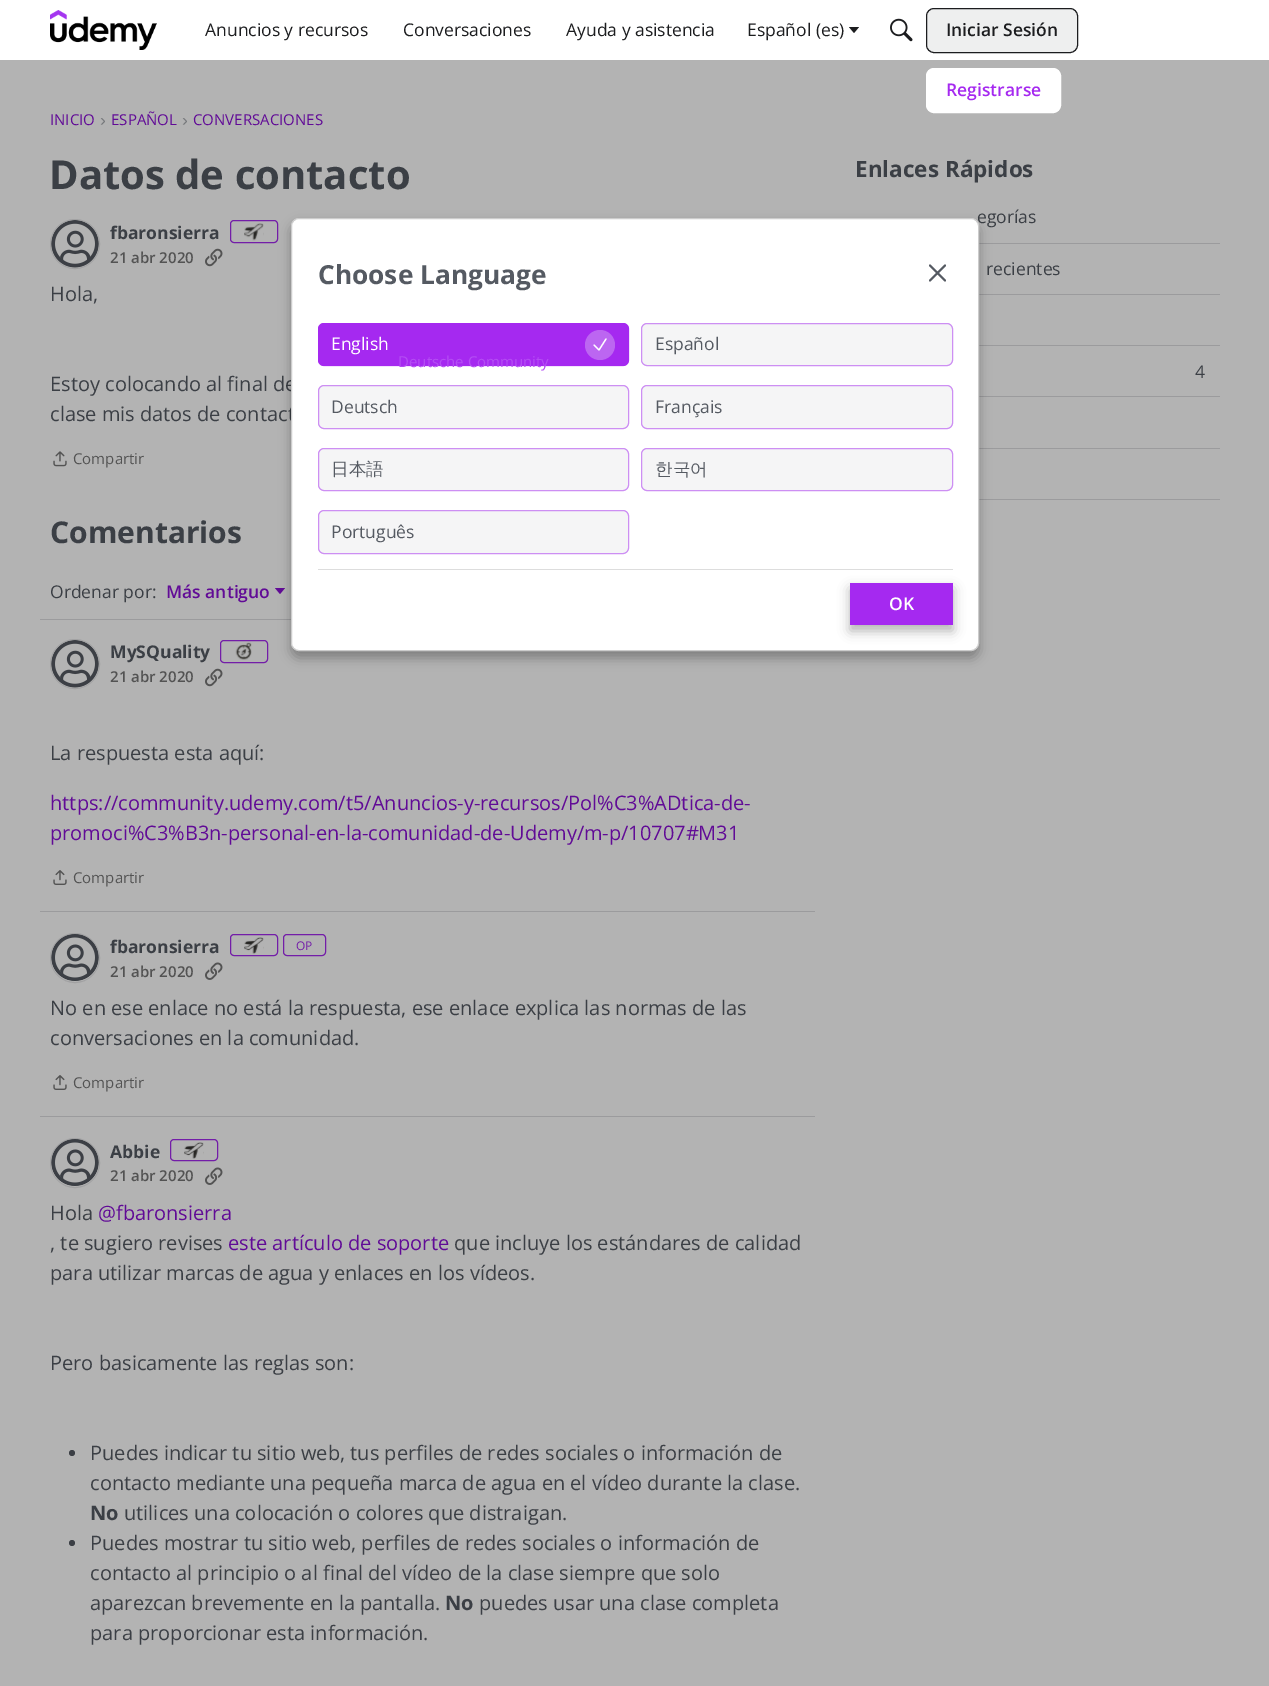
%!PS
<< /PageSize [1269 1686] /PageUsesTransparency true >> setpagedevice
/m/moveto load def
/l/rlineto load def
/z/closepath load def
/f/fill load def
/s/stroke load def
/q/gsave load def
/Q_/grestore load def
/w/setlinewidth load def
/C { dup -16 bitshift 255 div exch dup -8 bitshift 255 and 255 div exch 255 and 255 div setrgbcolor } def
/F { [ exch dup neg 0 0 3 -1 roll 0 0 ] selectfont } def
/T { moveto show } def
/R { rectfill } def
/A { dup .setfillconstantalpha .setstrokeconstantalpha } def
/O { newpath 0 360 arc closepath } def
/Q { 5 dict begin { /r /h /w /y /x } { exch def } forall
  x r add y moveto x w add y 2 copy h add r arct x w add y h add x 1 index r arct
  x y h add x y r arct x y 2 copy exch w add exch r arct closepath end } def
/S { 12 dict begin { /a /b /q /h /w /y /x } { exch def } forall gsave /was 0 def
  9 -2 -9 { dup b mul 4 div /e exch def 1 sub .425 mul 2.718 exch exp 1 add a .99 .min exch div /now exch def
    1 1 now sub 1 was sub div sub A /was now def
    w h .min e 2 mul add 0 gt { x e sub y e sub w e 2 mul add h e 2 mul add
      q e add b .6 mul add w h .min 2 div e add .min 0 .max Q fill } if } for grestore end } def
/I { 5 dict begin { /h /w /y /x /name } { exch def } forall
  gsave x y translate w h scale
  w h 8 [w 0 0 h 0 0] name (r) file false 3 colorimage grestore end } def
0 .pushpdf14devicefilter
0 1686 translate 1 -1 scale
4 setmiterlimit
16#B3B3B3 C
0 0 1269 1686 R
16#FFFFFF C
0 0 1269 60 R
(1.rgb) 50 10 107 40 I
/OpenSans-Regular 17.5 F
16#1C1D1F C
(Anuncios y recursos) 205 36 T
(Conversaciones) 403 36 T
(Ayuda y asistencia) 566 36 T
(Español \(es\)) 747 36 T
849 27 m 10 0 l -5 6 l z f
(2.rgb) 890 18 23 24 I
16#EEEFEF C
926.5 8.5 151 44 7.5 Q q f Q_
16#1C1D1F C
s
/OpenSans-SemiBold 17.5 F
(Iniciar Sesión) 946 36 T
16#FFFFFF C
926.5 68.5 134 44 7.5 Q q f Q_
s
16#A529F0 C
(Registrarse) 946 96 T
/OpenSans-Regular 15 F
16#610B96 C
(INICIO) 50 125 T
/LiberationSans-Regular 17.5 F
16#77797C C
(›) 100 126 T
/OpenSans-Regular 15 F
16#610B96 C
(ESPAÑOL) 111 125 T
/LiberationSans-Regular 17.5 F
16#77797C C
(›) 182 126 T
/OpenSans-Regular 15 F
16#610B96 C
(CONVERSACIONES) 193 125 T
/OpenSans-Bold 40 F
16#3B3F45 C
(Datos de contacto) 49 189 T
16#A1A1A2 C
75 244 24.5 O s
(3.rgb) 51 220 48 48 I
/OpenSans-Bold 17.5 F
16#3B3F45 C
(fbaronsierra) 110 239 T
16#731DA8 C
230.5 220.5 47 22 3.5 Q s
(4.rgb) 244 223 20 18 I
/OpenSans-SemiBold 15 F
16#535353 C
(21 abr 2020) 110 263 T
(5.rgb) 205 248 18 19 I
/OpenSans-Regular 20 F
16#3B3F45 C
(Hola,) 50 301 T
(Estoy colocando al final de) 50 391 T
(clase mis datos de contact) 50 421 T
(6.rgb) 53 451 14 16 I
/OpenSans-Regular 15 F
16#535353 C
(Compartir) 73 464 T
/OpenSans-Bold 30 F
16#3B3F45 C
(Comentarios) 50 543 T
/OpenSans-Regular 17.5 F
(Ordenar por:) 50 598 T
/OpenSans-SemiBold 17.5 F
16#610B96 C
(Más antiguo) 166 598 T
275 588 m 10 0 l -5 6 l z f
16#9B9B9D C
40 619 251 1 R
16#A1A1A2 C
75 664 24.5 O s
(3.rgb) 51 640 48 48 I
/OpenSans-Bold 17.5 F
16#3B3F45 C
(MySQuality) 110 658 T
16#731DA8 C
220.5 640.5 47 22 3.5 Q s
(7.rgb) 235 642 17 18 I
/OpenSans-SemiBold 15 F
16#535353 C
(21 abr 2020) 110 682 T
(5.rgb) 205 668 18 19 I
/OpenSans-Regular 20 F
16#3B3F45 C
(La respuesta esta aquí:) 50 760 T
16#610B96 C
(https://community.udemy.com/t5/Anuncios-y-recursos/Pol%C3%ADtica-de-) 50 810 T
(promoci%C3%B3n-personal-en-la-comunidad-de-Udemy/m-p/10707#M31) 50 840 T
(8.rgb) 53 870 14 15 I
/OpenSans-Regular 15 F
16#535353 C
(Compartir) 73 883 T
16#9B9B9D C
40 911 775 1 R
16#A1A1A2 C
75 958 24.5 O s
(9.rgb) 51 934 48 47 I
/OpenSans-Bold 17.5 F
16#3B3F45 C
(fbaronsierra) 110 953 T
16#731DA8 C
230.5 934.5 47 21 3.5 Q s
(10.rgb) 244 937 20 17 I
283.5 934.5 42 21 3.5 Q s
/OpenSans-Regular 12 F
(OP) 296 950 T
/OpenSans-SemiBold 15 F
16#535353 C
(21 abr 2020) 110 977 T
(11.rgb) 205 962 18 18 I
/OpenSans-Regular 20 F
16#3B3F45 C
(No en ese enlace no está la respuesta, ese enlace explica las normas de las) 50 1015 T
(conversaciones en la comunidad.) 50 1045 T
(8.rgb) 53 1075 14 15 I
/OpenSans-Regular 15 F
16#535353 C
(Compartir) 73 1088 T
16#9B9B9D C
40 1116 775 1 R
16#A1A1A2 C
75 1163 24.5 O s
(9.rgb) 51 1139 48 47 I
/OpenSans-Bold 17.5 F
16#3B3F45 C
(Abbie) 110 1158 T
16#731DA8 C
170.5 1139.5 47 21 3.5 Q s
(10.rgb) 184 1142 20 17 I
/OpenSans-SemiBold 15 F
16#535353 C
(21 abr 2020) 110 1181 T
(11.rgb) 205 1167 18 18 I
/OpenSans-Regular 20 F
16#3B3F45 C
(Hola) 50 1220 T
16#610B96 C
(@fbaronsierra) 98 1220 T
16#3B3F45 C
(, te sugiero revises) 50 1250 T
16#610B96 C
(este artículo de soporte) 228 1250 T
16#3B3F45 C
(que incluye los estándares de calidad) 454 1250 T
(para utilizar marcas de agua y enlaces en los vídeos.) 50 1280 T
(Pero basicamente las reglas son:) 50 1370 T
72 1453 3 O f
(Puedes indicar tu sitio web, tus perfiles de redes sociales o información de) 90 1460 T
(contacto mediante una pequeña marca de agua en el vídeo durante la clase.) 90 1490 T
/OpenSans-Bold 20 F
(No) 90 1520 T
/OpenSans-Regular 20 F
(utilices una colocación o colores que distraigan.) 124 1520 T
72 1543 3 O f
(Puedes mostrar tu sitio web, perfiles de redes sociales o información de) 90 1550 T
(contacto al principio o al final del vídeo de la clase siempre que solo) 90 1580 T
(aparezcan brevemente en la pantalla.) 90 1610 T
/OpenSans-Bold 20 F
(No) 445 1610 T
/OpenSans-Regular 20 F
(puedes usar una clase completa) 479 1610 T
(para proporcionar esta información.) 90 1640 T
/OpenSans-Bold 22.5 F
(Enlaces Rápidos) 855 177 T
16#9B9B9D C
979 243 241 1 R
/OpenSans-Regular 17.5 F
16#3B3F45 C
(egorías) 977 223 T
16#9B9B9D C
979 294 241 1 R
16#3B3F45 C
(recientes) 986 275 T
16#9B9B9D C
979 345 241 1 R
979 396 241 1 R
16#3B3F45 C
(4) 1195 378 T
16#9B9B9D C
979 448 241 1 R
979 499 241 1 R
16#000000 C
291 224 688 434 8 6 .3 S
16#FFFFFF C
291.5 218.5 687 432 7.5 Q q f Q_
16#CCCCCC C
s
/OpenSans-Bold 26.25 F
16#555A62 C
(Choose Language) 318 284 T
1.9 w
1 setlinecap
1 setlinejoin
930 280.5 m 15 -15 l 930 265.5 m 15 15 l s
16#A529F0 C
318 323 311 43 6 Q f
0.5 A
1 w
0 setlinecap
0 setlinejoin
318.5 323.5 310 42 5.5 Q s
/OpenSans-Regular 17.5 F
1 A
16#FFFFFF C
(English) 331 350 T
16#BC66F1 C
600 345 15 O f
16#FFFFFF C
1.2 w
1 setlinecap
1 setlinejoin
594 345 m 5 5 l 7 -11 l s
16#F5F5F6 C
641.5 323.5 311 42 5.5 Q q f Q_
16#CD8FF3 C
1 w
0 setlinecap
0 setlinejoin
s
16#555A62 C
(Español) 655 350 T
16#F5F5F6 C
318.5 385.5 310 43 5.5 Q q f Q_
16#CD8FF3 C
s
/OpenSans-Regular 15 F
16#B44DF3 C
(Deutsche Community) 398 367 T
/OpenSans-Regular 17.5 F
16#555A62 C
(Deutsch) 331 413 T
16#F5F5F6 C
641.5 385.5 311 43 5.5 Q q f Q_
16#CD8FF3 C
s
16#555A62 C
(Français) 655 413 T
16#F5F5F6 C
318.5 448.5 310 42 5.5 Q q f Q_
16#CD8FF3 C
s
/WenQuanYiZenHei-Medium 17.5 F
16#555A62 C
(日本語) 331 475 T
16#F5F5F6 C
641.5 448.5 311 42 5.5 Q q f Q_
16#CD8FF3 C
s
16#555A62 C
(한국어) 655 475 T
16#F5F5F6 C
318.5 510.5 310 43 5.5 Q q f Q_
16#CD8FF3 C
s
/OpenSans-Regular 17.5 F
16#555A62 C
(Português) 331 538 T
16#DDDDDD C
318 569 635 1 R
16#000000 C
850 589 103 42 0 6 .3 S
16#A529F0 C
850 583 103 42 R
/OpenSans-SemiBold 17.5 F
16#FFFFFF C
(OK) 889 610 T
.poppdf14devicefilter showpage
